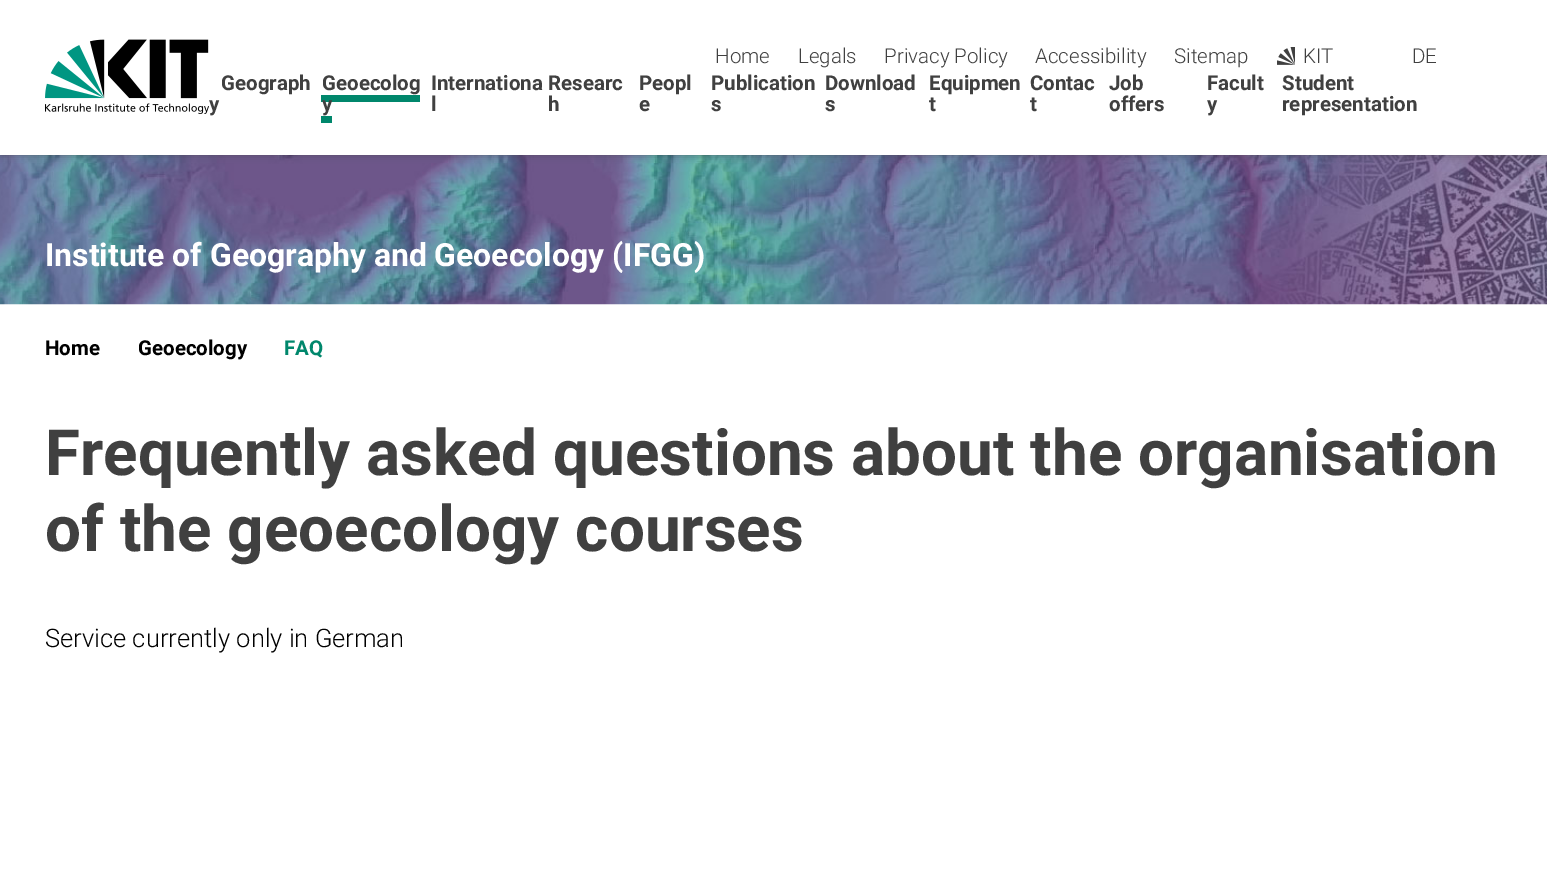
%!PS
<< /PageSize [1547 892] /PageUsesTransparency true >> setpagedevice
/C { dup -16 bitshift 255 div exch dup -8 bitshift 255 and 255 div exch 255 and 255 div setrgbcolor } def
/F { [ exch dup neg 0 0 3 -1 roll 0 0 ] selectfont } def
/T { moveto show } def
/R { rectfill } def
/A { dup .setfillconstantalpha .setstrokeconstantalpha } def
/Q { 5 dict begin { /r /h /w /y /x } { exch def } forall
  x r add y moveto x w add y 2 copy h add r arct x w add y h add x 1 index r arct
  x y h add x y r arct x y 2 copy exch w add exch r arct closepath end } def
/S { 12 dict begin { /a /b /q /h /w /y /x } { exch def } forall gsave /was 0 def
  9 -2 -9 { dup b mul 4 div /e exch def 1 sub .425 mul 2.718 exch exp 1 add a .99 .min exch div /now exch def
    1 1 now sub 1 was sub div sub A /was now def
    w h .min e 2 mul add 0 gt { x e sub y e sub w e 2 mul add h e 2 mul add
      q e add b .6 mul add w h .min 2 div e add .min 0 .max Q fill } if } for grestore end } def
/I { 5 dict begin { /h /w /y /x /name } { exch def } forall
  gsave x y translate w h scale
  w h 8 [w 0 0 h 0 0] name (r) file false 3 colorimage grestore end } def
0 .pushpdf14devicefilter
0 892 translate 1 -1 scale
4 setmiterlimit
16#FFFFFF C
0 0 1547 892 R
(3.rgb) 0 155 1547 150 I
16#404040 C
0 0 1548 155 0 4 .5 S
16#FFFFFF C
0 0 1547 155 R
(1.rgb) 45 39 164 75 I
/Roboto-Light 20.5 F
16#404040 C
(Home) 715 63 T
(Legals) 798 63 T
(Privacy Policy) 884 63 T
(Accessibility) 1035 63 T
(Sitemap) 1174 63 T
(2.rgb) 1277 47 18 18 I
(KIT) 1303 63 T
(DE) 1412 63 T
/Roboto-Bold 20.5 F
(Geograph) 221 90 T
(y) 209 111 T
(Geoecolog) 322 90 T
16#00876C C
321 95 99 7 R
16#404040 C
(y) 322 111 T
16#00876C C
321 116 11 7 R
16#404040 C
(Internationa Researc) 431 90 T
(l) 431 111 T
(Peopl) 639 90 T
(e) 639 111 T
(Publication) 711 90 T
(s) 711 111 T
(Download) 825 90 T
(s) 825 111 T
(Equipmen) 929 90 T
(t) 929 111 T
(Contac) 1030 90 T
(t) 1030 111 T
(Job) 1109 90 T
(offers) 1109 111 T
(Facult) 1207 90 T
(y) 1207 111 T
(Student) 1282 90 T
(representation) 1282 111 T
(h) 548 111 T
/Roboto-Bold 31.9 F
16#FFFFFF C
(Institute of Geography and Geoecology \(IFGG\)) 45 266 T
/Roboto-Bold 20.5 F
16#000000 C
(Home) 45 355 T
(Geoecology) 138 355 T
16#00876C C
(FAQ) 284 355 T
/Roboto-Bold 63.75 F
16#404040 C
(Frequently asked questions about the organisation) 45 475 T
(of the geoecology courses) 45 551 T
/Roboto-Light 25.5 F
16#000000 C
(Service currently only in German) 45 647 T
.poppdf14devicefilter showpage
